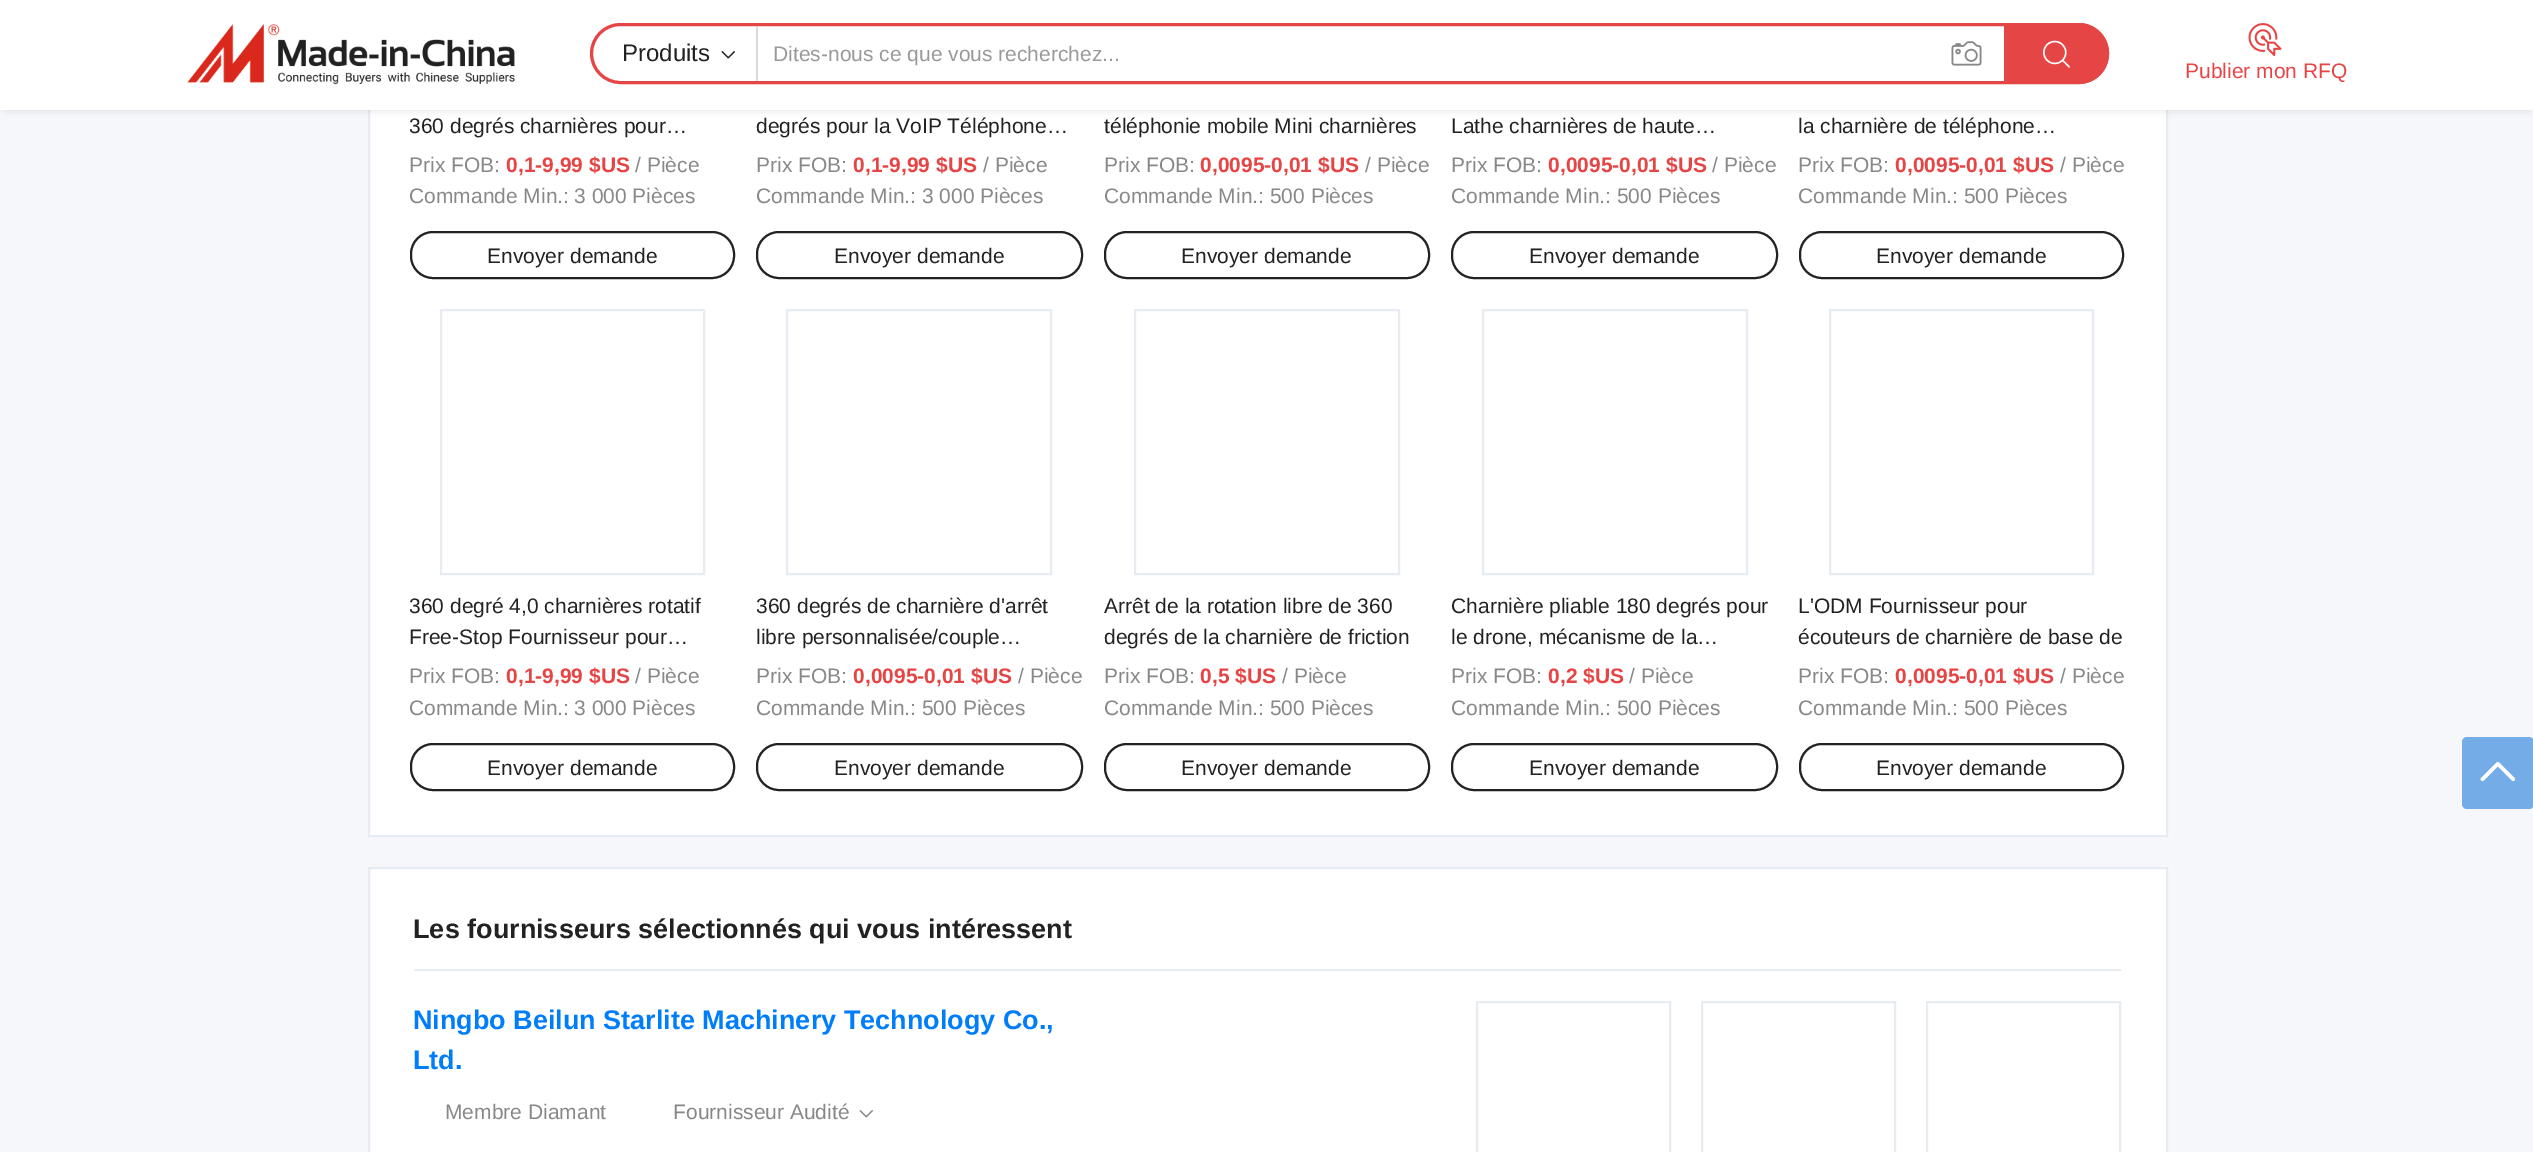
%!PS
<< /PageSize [2533 1152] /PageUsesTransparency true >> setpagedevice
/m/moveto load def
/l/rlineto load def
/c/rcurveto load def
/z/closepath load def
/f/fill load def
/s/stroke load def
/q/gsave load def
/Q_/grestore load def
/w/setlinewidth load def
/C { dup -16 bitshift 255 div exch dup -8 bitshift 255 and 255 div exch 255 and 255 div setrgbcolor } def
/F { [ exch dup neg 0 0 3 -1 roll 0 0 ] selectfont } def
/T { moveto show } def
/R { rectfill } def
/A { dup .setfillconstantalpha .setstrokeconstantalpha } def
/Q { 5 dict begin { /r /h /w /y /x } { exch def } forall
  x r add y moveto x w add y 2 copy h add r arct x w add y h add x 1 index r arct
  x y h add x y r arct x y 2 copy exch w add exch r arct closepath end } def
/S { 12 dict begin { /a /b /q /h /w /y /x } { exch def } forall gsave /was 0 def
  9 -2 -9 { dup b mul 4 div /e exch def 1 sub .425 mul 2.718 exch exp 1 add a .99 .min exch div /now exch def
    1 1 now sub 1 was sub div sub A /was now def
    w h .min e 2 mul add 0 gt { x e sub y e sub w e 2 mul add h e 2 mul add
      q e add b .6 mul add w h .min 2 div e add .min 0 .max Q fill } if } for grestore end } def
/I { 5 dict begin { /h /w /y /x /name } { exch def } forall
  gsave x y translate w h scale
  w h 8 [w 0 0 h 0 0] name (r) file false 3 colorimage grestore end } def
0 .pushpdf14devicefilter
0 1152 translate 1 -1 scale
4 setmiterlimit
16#F5F7FA C
0 0 2533 1152 R
16#FFFFFF C
370 110 1796 725 R
16#E6ECF2 C
2 w
369 -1 1798 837 rectstroke
16#000000 C
5 9 2524 101 0 4 .12 S
16#FFFFFF C
0 0 2533 110 R
(1.rgb) 187 24 328 60 I
16#E64545 C
3 w
591.5 24.5 1516 58 29 Q s
16#DADADA C
756 26 2 55 R
/LiberationSans-Regular 24 F
16#222222 C
(Produits) 622 61 T
(2.rgb) 721 51 14 8 I
/LiberationSans-Regular 21 F
16#999999 C
(Dites-nous ce que vous recherchez...) 773 61 T
(3.rgb) 1951 41 31 25 I
16#E64545 C
2004 23 m 74.5 0 l 17 0 30.5 13.5 30.5 30.5 c 0 17 -13.5 30.5 -30.5 30.5 c -74.5 0 l z f
(4.rgb) 2043 40 27 28 I
(5.rgb) 2248 23 34 34 I
(Publier mon RFQ) 2185 78 T
q
410 78 325 63 rectclip
16#222222 C
(360 degrés charnières pour…) 409 133 T
Q_
16#888888 C
(Prix FOB:) 409 172 T
/LiberationSans-Bold 21 F
16#E64545 C
(0,1-9,99 $US) 506 172 T
/LiberationSans-Regular 21 F
16#888888 C
(/ Pièce) 635 172 T
q
410 180 325 32 rectclip
(Commande Min.:) 409 203 T
Q_
(3 000 Pièces) 574 203 T
16#222222 C
2 w
411 232 323 46 22 Q s
(Envoyer demande) 487 263 T
(degrés pour la VoIP Téléphone…) 756 133 T
16#888888 C
(Prix FOB:) 756 172 T
/LiberationSans-Bold 21 F
16#E64545 C
(0,1-9,99 $US) 853 172 T
/LiberationSans-Regular 21 F
16#888888 C
(/ Pièce) 983 172 T
(Commande Min.: 3 000 Pièces) 756 203 T
16#222222 C
757 232 325 46 22 Q s
(Envoyer demande) 834 263 T
(téléphonie mobile Mini charnières) 1104 133 T
16#888888 C
(Prix FOB:) 1104 172 T
/LiberationSans-Bold 21 F
16#E64545 C
(0,0095-0,01 $US) 1200 172 T
/LiberationSans-Regular 21 F
16#888888 C
(/ Pièce) 1365 172 T
(Commande Min.: 500 Pièces) 1104 203 T
16#222222 C
1105 232 324 46 22 Q s
(Envoyer demande) 1181 263 T
(Lathe charnières de haute…) 1451 133 T
16#888888 C
(Prix FOB:) 1451 172 T
/LiberationSans-Bold 21 F
16#E64545 C
(0,0095-0,01 $US) 1548 172 T
/LiberationSans-Regular 21 F
16#888888 C
(/ Pièce) 1712 172 T
(Commande Min.: 500 Pièces) 1451 203 T
16#222222 C
1452 232 325 46 22 Q s
(Envoyer demande) 1529 263 T
(la charnière de téléphone…) 1798 133 T
16#888888 C
(Prix FOB:) 1798 172 T
/LiberationSans-Bold 21 F
16#E64545 C
(0,0095-0,01 $US) 1895 172 T
/LiberationSans-Regular 21 F
16#888888 C
(/ Pièce) 2060 172 T
(Commande Min.: 500 Pièces) 1798 203 T
16#222222 C
1800 232 323 46 22 Q s
(Envoyer demande) 1876 263 T
16#E6ECF2 C
441 310 263 264 rectstroke
q
410 590 325 63 rectclip
16#222222 C
(360 degré 4,0 charnières rotatif) 409 613 T
Q_
16#222222 C
(Free-Stop Fournisseur pour…) 409 644 T
16#888888 C
(Prix FOB:) 409 683 T
/LiberationSans-Bold 21 F
16#E64545 C
(0,1-9,99 $US) 506 683 T
/LiberationSans-Regular 21 F
16#888888 C
(/ Pièce) 635 683 T
q
410 692 325 31 rectclip
(Commande Min.:) 409 715 T
Q_
(3 000 Pièces) 574 715 T
16#222222 C
411 744 323 46 22 Q s
(Envoyer demande) 487 775 T
16#E6ECF2 C
787 310 264 264 rectstroke
16#222222 C
(360 degrés de charnière d'arrêt) 756 613 T
(libre personnalisée/couple…) 756 644 T
16#888888 C
(Prix FOB:) 756 683 T
/LiberationSans-Bold 21 F
16#E64545 C
(0,0095-0,01 $US) 853 683 T
/LiberationSans-Regular 21 F
16#888888 C
(/ Pièce) 1018 683 T
(Commande Min.: 500 Pièces) 756 715 T
16#222222 C
757 744 325 46 22 Q s
(Envoyer demande) 834 775 T
16#E6ECF2 C
1135 310 264 264 rectstroke
16#222222 C
(Arrêt de la rotation libre de 360) 1104 613 T
(degrés de la charnière de friction) 1104 644 T
16#888888 C
(Prix FOB:) 1104 683 T
/LiberationSans-Bold 21 F
16#E64545 C
(0,5 $US) 1200 683 T
/LiberationSans-Regular 21 F
16#888888 C
(/ Pièce) 1282 683 T
(Commande Min.: 500 Pièces) 1104 715 T
16#222222 C
1105 744 324 46 22 Q s
(Envoyer demande) 1181 775 T
16#E6ECF2 C
1483 310 264 264 rectstroke
16#222222 C
(Charnière pliable 180 degrés pour) 1451 613 T
(le drone, mécanisme de la…) 1451 644 T
16#888888 C
(Prix FOB:) 1451 683 T
/LiberationSans-Bold 21 F
16#E64545 C
(0,2 $US) 1548 683 T
/LiberationSans-Regular 21 F
16#888888 C
(/ Pièce) 1629 683 T
(Commande Min.: 500 Pièces) 1451 715 T
16#222222 C
1452 744 325 46 22 Q s
(Envoyer demande) 1529 775 T
16#E6ECF2 C
1830 310 263 264 rectstroke
16#222222 C
(L'ODM Fournisseur pour) 1798 613 T
(écouteurs de charnière de base de) 1798 644 T
16#888888 C
(Prix FOB:) 1798 683 T
/LiberationSans-Bold 21 F
16#E64545 C
(0,0095-0,01 $US) 1895 683 T
/LiberationSans-Regular 21 F
16#888888 C
(/ Pièce) 2060 683 T
(Commande Min.: 500 Pièces) 1798 715 T
16#222222 C
1800 744 323 46 22 Q s
(Envoyer demande) 1876 775 T
16#FFFFFF C
369 868 m 1798 0 l 0 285 l -1798 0 l z q f Q_
16#E6ECF2 C
s
/LiberationSans-Bold 27 F
16#222222 C
(Les fournisseurs sélectionnés qui vous intéressent) 413 938 T
16#E6ECF2 C
414 969 1707 2 R
16#007DFA C
(Ningbo Beilun Starlite Machinery Technology Co.,) 413 1029 T
(Ltd.) 413 1069 T
/LiberationSans-Regular 21 F
16#888888 C
(Membre Diamant) 445 1119 T
(Fournisseur Audité) 673 1119 T
(6.rgb) 859 1110 14 8 I
16#E6ECF2 C
1477 1002 193 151 rectstroke
1702 1002 193 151 rectstroke
1927 1002 193 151 rectstroke
16#73ACE6 C
2462 737 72 72 5 Q f
(7.rgb) 2480 761 36 21 I
.poppdf14devicefilter showpage
